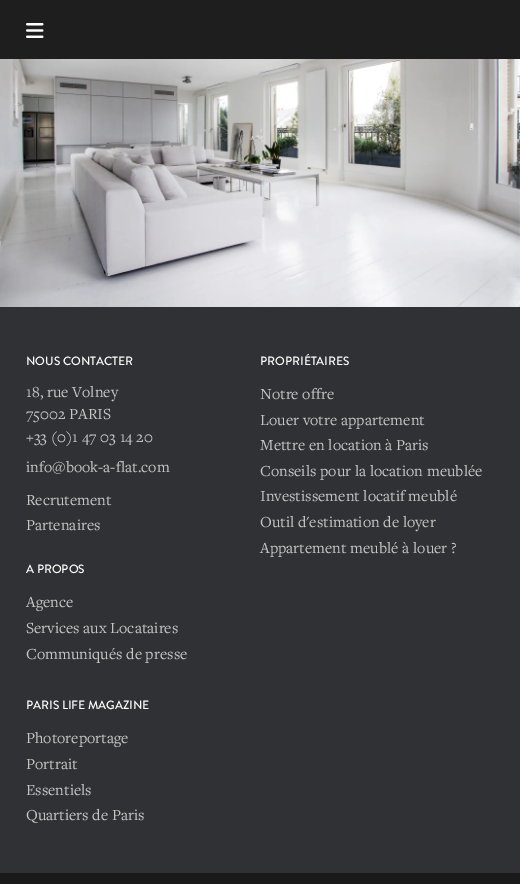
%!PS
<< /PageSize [520 884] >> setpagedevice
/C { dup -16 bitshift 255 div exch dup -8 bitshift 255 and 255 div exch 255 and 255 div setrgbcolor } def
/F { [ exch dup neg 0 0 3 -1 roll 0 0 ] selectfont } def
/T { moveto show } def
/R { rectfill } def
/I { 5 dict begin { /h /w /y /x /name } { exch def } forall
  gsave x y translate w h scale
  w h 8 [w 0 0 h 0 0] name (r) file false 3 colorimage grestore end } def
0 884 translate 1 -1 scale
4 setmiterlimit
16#1A1A1A C
0 0 520 884 R
16#1E1E1E C
0 0 520 59 R
(1.rgb) 26 23 18 15 I
(2.rgb) 0 59 520 248 I
16#303135 C
0 307 520 566 R
/BrandonGrotesque-Medium 12 F
16#FFFFFF C
(NOUS CONTACTER) 26 365 T
/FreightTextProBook-Regular 16 F
16#C5C5C5 C
(18, rue Volney) 26 397 T
(75002 PARIS) 26 419 T
(+33 \(0\)1 47 03 14 20) 26 442 T
(info@book-a-flat.com) 26 472 T
(Recrutement) 26 505 T
(Partenaires) 26 530 T
/BrandonGrotesque-Medium 12 F
16#FFFFFF C
(PROPRIÉTAIRES) 260 365 T
/FreightTextProBook-Regular 16 F
16#C5C5C5 C
(Notre offre) 260 399 T
(Louer votre appartement) 260 425 T
(Mettre en location à Paris) 260 450 T
(Conseils pour la location meublée) 260 476 T
(Investissement locatif meublé) 260 501 T
(Outil d'estimation de loyer) 260 527 T
(Appartement meublé à louer ?) 260 553 T
/BrandonGrotesque-Medium 12 F
16#FFFFFF C
(A PROPOS) 26 573 T
/FreightTextProBook-Regular 16 F
16#C5C5C5 C
(Agence) 26 607 T
(Services aux Locataires) 26 633 T
(Communiqués de presse) 26 659 T
/BrandonGrotesque-Medium 12 F
16#FFFFFF C
(PARIS LIFE MAGAZINE) 26 709 T
/FreightTextProBook-Regular 16 F
16#C5C5C5 C
(Photoreportage) 26 743 T
(Portrait) 26 769 T
(Essentiels) 26 795 T
(Quartiers de Paris) 26 820 T
showpage
